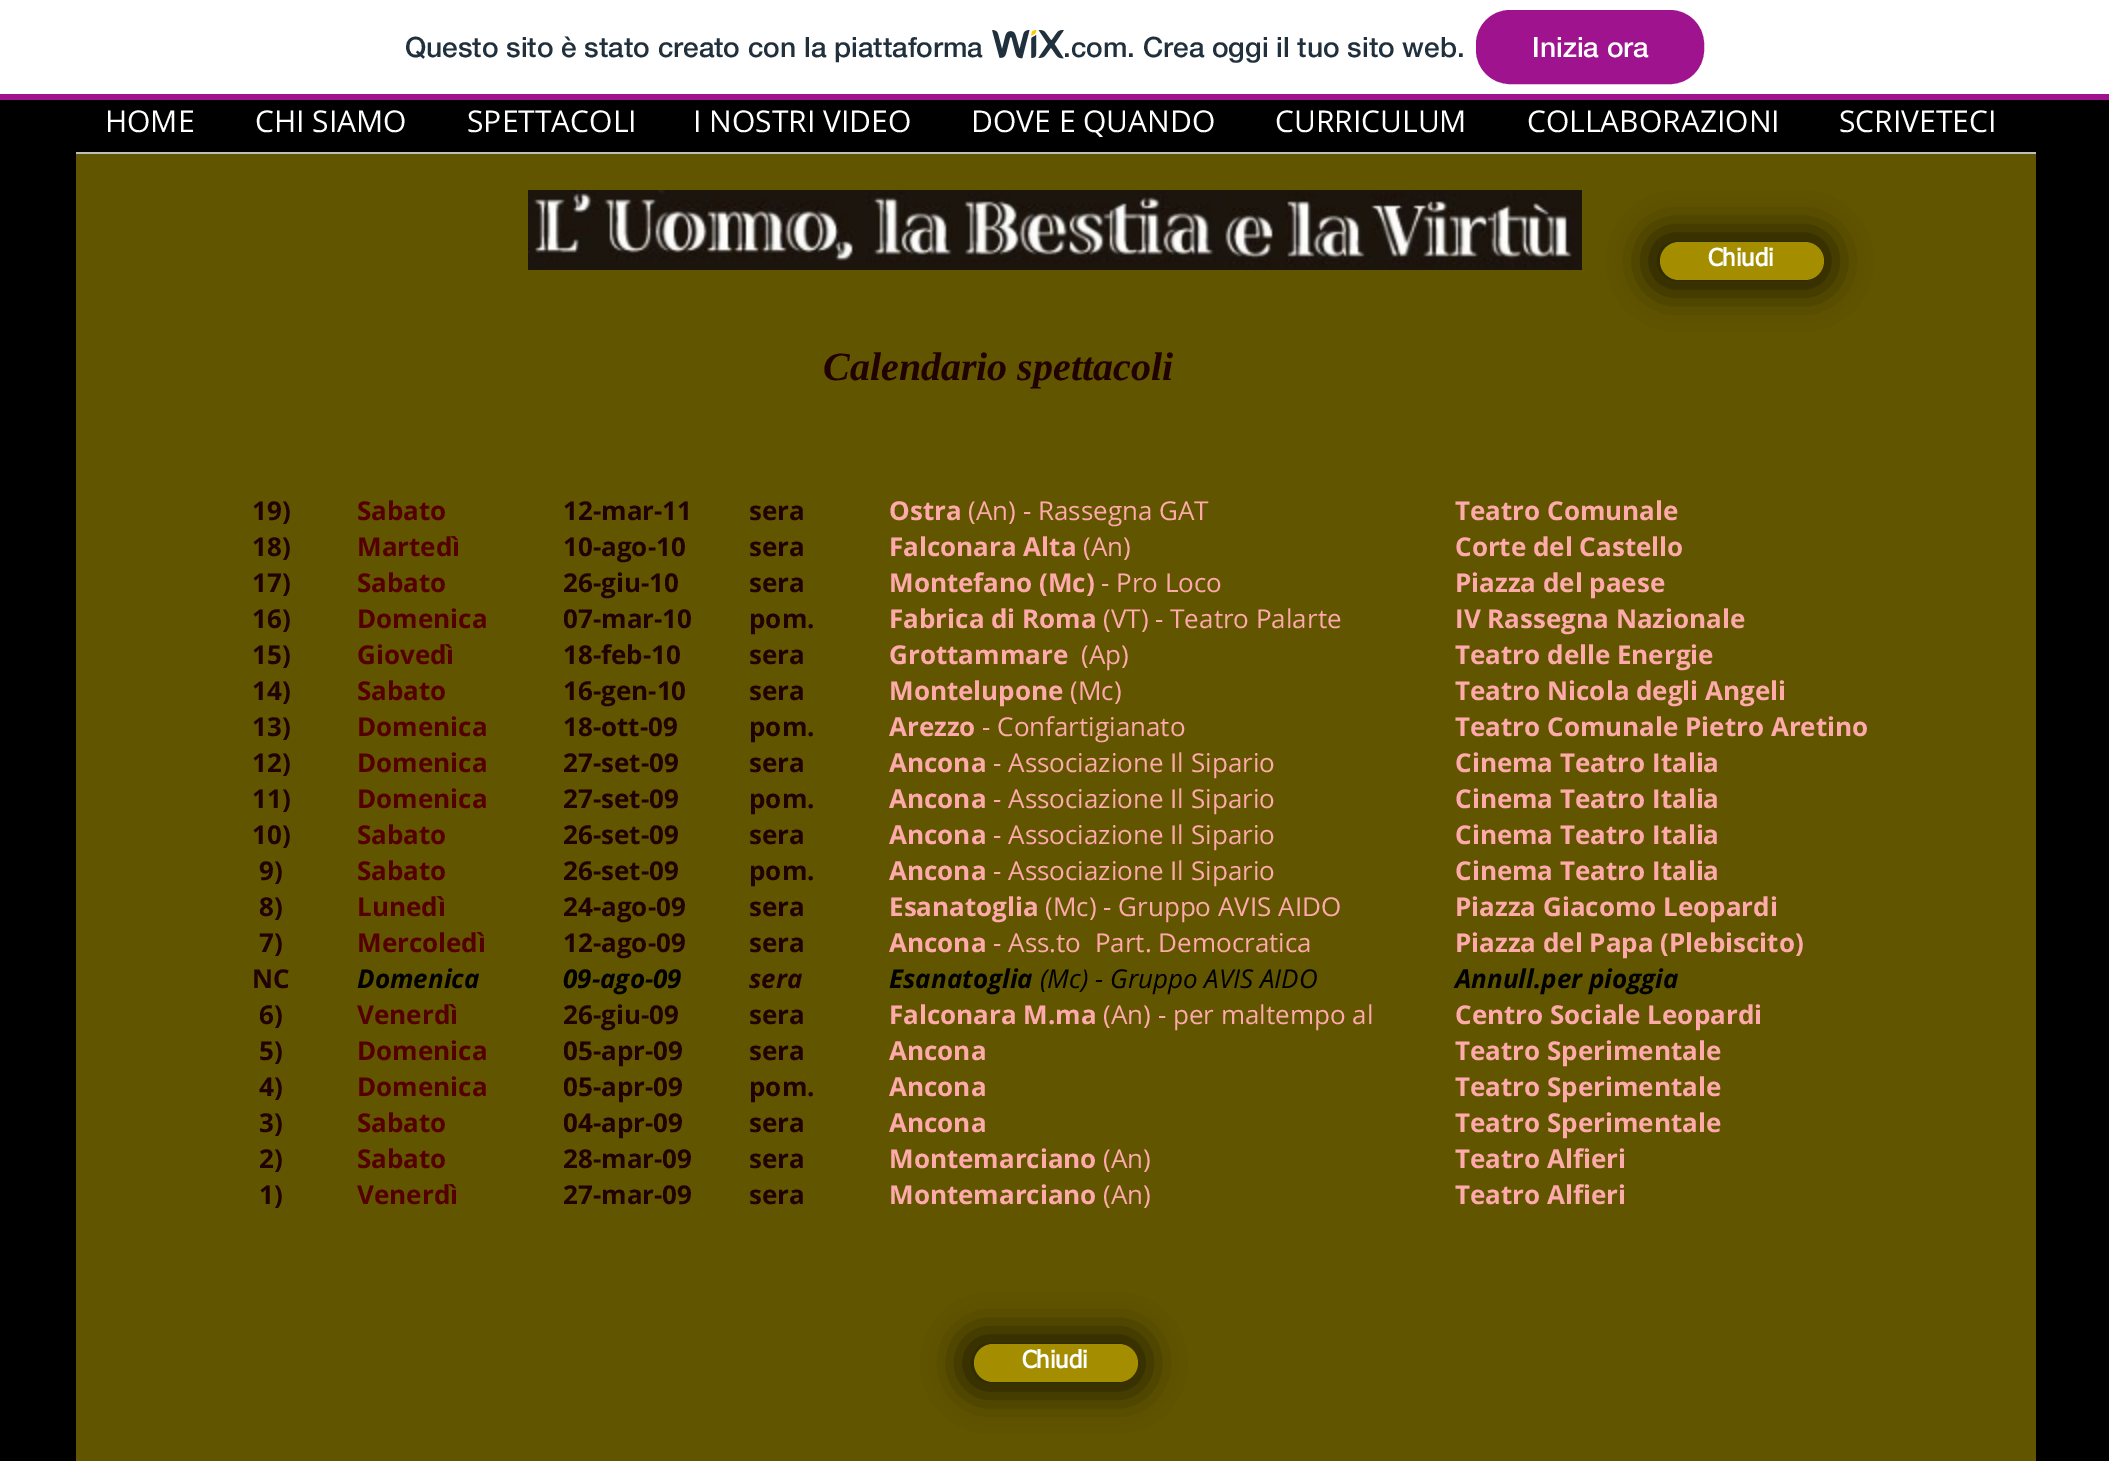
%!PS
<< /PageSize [2109 1461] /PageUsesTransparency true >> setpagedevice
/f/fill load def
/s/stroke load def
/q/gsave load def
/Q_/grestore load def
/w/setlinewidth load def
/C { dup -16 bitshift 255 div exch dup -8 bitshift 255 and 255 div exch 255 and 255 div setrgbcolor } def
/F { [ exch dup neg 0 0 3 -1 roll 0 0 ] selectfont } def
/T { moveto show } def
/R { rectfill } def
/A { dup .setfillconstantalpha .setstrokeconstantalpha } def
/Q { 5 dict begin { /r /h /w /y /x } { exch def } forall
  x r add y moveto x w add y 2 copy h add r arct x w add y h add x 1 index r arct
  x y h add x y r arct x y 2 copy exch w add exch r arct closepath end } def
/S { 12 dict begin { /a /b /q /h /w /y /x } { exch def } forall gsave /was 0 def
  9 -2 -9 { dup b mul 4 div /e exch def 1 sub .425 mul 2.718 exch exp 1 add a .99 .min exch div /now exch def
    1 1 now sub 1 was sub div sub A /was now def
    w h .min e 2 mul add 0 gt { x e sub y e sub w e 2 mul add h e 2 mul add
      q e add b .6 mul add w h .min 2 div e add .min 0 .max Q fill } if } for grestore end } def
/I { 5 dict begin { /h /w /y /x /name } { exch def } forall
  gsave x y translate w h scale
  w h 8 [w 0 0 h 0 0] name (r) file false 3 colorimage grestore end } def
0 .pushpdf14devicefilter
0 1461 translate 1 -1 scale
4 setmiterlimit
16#000000 C
0 0 2109 1461 R
16#FFFFFF C
0 0 2109 94 R
16#A0138E C
0 94 2109 6 R
/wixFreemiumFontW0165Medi-Medium 28 F
16#20303C C
(Questo sito è stato creato con la piattaforma) 405 57 T
(1.rgb) 992 30 72 29 I
(.com. Crea oggi il tuo sito web.) 1063 57 T
16#A0138E C
1477 11 226 72 33 Q q f Q_
2 w
s
16#FFFFFF C
(Inizia ora) 1532 57 T
/OpenSans-Regular 30 F
(HOME) 105 132 T
(CHI SIAMO) 255 132 T
(SPETTACOLI) 467 132 T
(I NOSTRI VIDEO) 693 132 T
(DOVE E QUANDO) 971 132 T
(CURRICULUM) 1275 132 T
(COLLABORAZIONI) 1527 132 T
(SCRIVETECI) 1839 132 T
16#BFBFBF C
76 152 1960 2 R
16#625500 C
76 154 1960 1307 R
(2.rgb) 528 190 1054 80 I
16#000000 C
1644 228 192 66 33 17 .6 S
16#A48E00 C
1660 242 164 38 19 Q f
/tahoma-Bold 24 F
16#FFFFFF C
(Chiudi) 1708 266 T
/LiberationSerif-BoldItalic 40 F
16#210101 C
(Calendario spettacoli) 823 380 T
/OpenSans-Bold 26 F
(19\)) 252 520 T
(18\)) 252 556 T
(17\)) 252 592 T
(16\)) 252 628 T
(15\)) 252 664 T
(14\)) 252 700 T
(13\)) 252 736 T
(12\)) 252 772 T
(11\)) 252 808 T
(10\)) 252 844 T
(9\)) 259 880 T
(8\)) 259 916 T
(7\)) 259 952 T
(NC) 252 988 T
(6\)) 259 1024 T
(5\)) 259 1060 T
(4\)) 259 1096 T
(3\)) 259 1132 T
(2\)) 259 1168 T
(1\)) 259 1204 T
16#540000 C
(Sabato) 357 520 T
(Martedì) 357 556 T
(Sabato) 357 592 T
(Domenica) 357 628 T
(Giovedì) 357 664 T
(Sabato) 357 700 T
(Domenica) 357 736 T
(Domenica) 357 772 T
(Domenica) 357 808 T
(Sabato) 357 844 T
(Sabato) 357 880 T
(Lunedì) 357 916 T
(Mercoledì) 357 952 T
/OpenSans-BoldItalic 26 F
16#000000 C
(Domenica) 357 988 T
/OpenSans-Bold 26 F
16#540000 C
(Venerdì) 357 1024 T
(Domenica) 357 1060 T
(Domenica) 357 1096 T
(Sabato) 357 1132 T
(Sabato) 357 1168 T
(Venerdì) 357 1204 T
16#210101 C
(12-mar-11) 563 520 T
(10-ago-10) 563 556 T
(26-giu-10) 563 592 T
(07-mar-10) 563 628 T
(18-feb-10) 563 664 T
(16-gen-10) 563 700 T
(18-ott-09) 563 736 T
(27-set-09) 563 772 T
(27-set-09) 563 808 T
(26-set-09) 563 844 T
(26-set-09) 563 880 T
(24-ago-09) 563 916 T
(12-ago-09) 563 952 T
/OpenSans-BoldItalic 26 F
16#000000 C
(09-ago-09) 563 988 T
/OpenSans-Bold 26 F
16#210101 C
(26-giu-09) 563 1024 T
(05-apr-09) 563 1060 T
(05-apr-09) 563 1096 T
(04-apr-09) 563 1132 T
(28-mar-09) 563 1168 T
(27-mar-09) 563 1204 T
(sera) 749 520 T
(sera) 749 556 T
(sera) 749 592 T
(pom.) 749 628 T
(sera) 749 664 T
(sera) 749 700 T
(pom.) 749 736 T
(sera) 749 772 T
(pom.) 749 808 T
(sera) 749 844 T
(pom.) 749 880 T
(sera) 749 916 T
(sera) 749 952 T
/OpenSans-BoldItalic 26 F
(sera) 749 988 T
/OpenSans-Bold 26 F
(sera) 749 1024 T
(sera) 749 1060 T
(pom.) 749 1096 T
(sera) 749 1132 T
(sera) 749 1168 T
(sera) 749 1204 T
16#FFAAAA C
(Ostra) 889 520 T
/OpenSans-Regular 26 F
(\(An\) - Rassegna GAT) 968 520 T
/OpenSans-Bold 26 F
(Falconara Alta) 889 556 T
/OpenSans-Regular 26 F
(\(An\)) 1083 556 T
/OpenSans-Bold 26 F
(Montefano \(Mc\)) 889 592 T
/OpenSans-Regular 26 F
(- Pro Loco) 1101 592 T
/OpenSans-Bold 26 F
(Fabrica di Roma) 889 628 T
/OpenSans-Regular 26 F
(\(VT\) - Teatro Palarte) 1103 628 T
/OpenSans-Bold 26 F
(Grottammare) 889 664 T
/OpenSans-Regular 26 F
(\(Ap\)) 1081 664 T
/OpenSans-Bold 26 F
(Montelupone) 889 700 T
/OpenSans-Regular 26 F
(\(Mc\)) 1070 700 T
/OpenSans-Bold 26 F
(Arezzo) 889 736 T
/OpenSans-Regular 26 F
(- Confartigianato) 982 736 T
/OpenSans-Bold 26 F
(Ancona) 889 772 T
/OpenSans-Regular 26 F
(- Associazione Il Sipario) 993 772 T
/OpenSans-Bold 26 F
(Ancona) 889 808 T
/OpenSans-Regular 26 F
(- Associazione Il Sipario) 993 808 T
/OpenSans-Bold 26 F
(Ancona) 889 844 T
/OpenSans-Regular 26 F
(- Associazione Il Sipario) 993 844 T
/OpenSans-Bold 26 F
(Ancona) 889 880 T
/OpenSans-Regular 26 F
(- Associazione Il Sipario) 993 880 T
/OpenSans-Bold 26 F
(Esanatoglia) 889 916 T
/OpenSans-Regular 26 F
(\(Mc\) - Gruppo AVIS AIDO) 1045 916 T
/OpenSans-Bold 26 F
(Ancona) 889 952 T
/OpenSans-Regular 26 F
(- Ass.to  Part. Democratica) 993 952 T
/OpenSans-BoldItalic 26 F
16#000000 C
(Esanatoglia) 889 988 T
/OpenSans-Italic 26 F
(\(Mc\) - Gruppo AVIS AIDO) 1040 988 T
/OpenSans-Bold 26 F
16#FFAAAA C
(Falconara M.ma) 889 1024 T
/OpenSans-Regular 26 F
(\(An\) - per maltempo al) 1103 1024 T
/OpenSans-Bold 26 F
(Ancona) 889 1060 T
(Ancona) 889 1096 T
(Ancona) 889 1132 T
(Montemarciano) 889 1168 T
/OpenSans-Regular 26 F
(\(An\)) 1103 1168 T
/OpenSans-Bold 26 F
(Montemarciano) 889 1204 T
/OpenSans-Regular 26 F
(\(An\)) 1103 1204 T
/OpenSans-Bold 26 F
(Teatro Comunale) 1455 520 T
(Corte del Castello) 1455 556 T
(Piazza del paese) 1455 592 T
(IV Rassegna Nazionale) 1455 628 T
(Teatro delle Energie) 1455 664 T
(Teatro Nicola degli Angeli) 1455 700 T
(Teatro Comunale Pietro Aretino) 1455 736 T
(Cinema Teatro Italia) 1455 772 T
(Cinema Teatro Italia) 1455 808 T
(Cinema Teatro Italia) 1455 844 T
(Cinema Teatro Italia) 1455 880 T
(Piazza Giacomo Leopardi) 1455 916 T
(Piazza del Papa \(Plebiscito\)) 1455 952 T
/OpenSans-BoldItalic 26 F
16#000000 C
(Annull.per pioggia) 1455 988 T
/OpenSans-Bold 26 F
16#FFAAAA C
(Centro Sociale Leopardi) 1455 1024 T
(Teatro Sperimentale) 1455 1060 T
(Teatro Sperimentale) 1455 1096 T
(Teatro Sperimentale) 1455 1132 T
(Teatro Alfieri) 1455 1168 T
(Teatro Alfieri) 1455 1204 T
16#000000 C
958 1330 192 66 33 17 .6 S
16#A48E00 C
974 1344 164 38 19 Q f
/tahoma-Bold 24 F
16#FFFFFF C
(Chiudi) 1022 1368 T
.poppdf14devicefilter showpage
